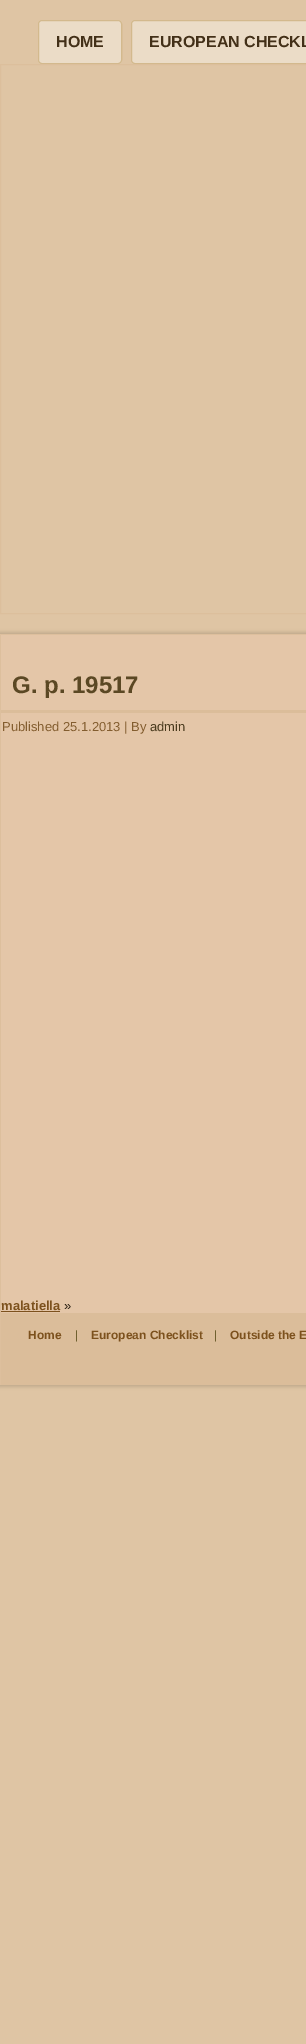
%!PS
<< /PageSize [306 2044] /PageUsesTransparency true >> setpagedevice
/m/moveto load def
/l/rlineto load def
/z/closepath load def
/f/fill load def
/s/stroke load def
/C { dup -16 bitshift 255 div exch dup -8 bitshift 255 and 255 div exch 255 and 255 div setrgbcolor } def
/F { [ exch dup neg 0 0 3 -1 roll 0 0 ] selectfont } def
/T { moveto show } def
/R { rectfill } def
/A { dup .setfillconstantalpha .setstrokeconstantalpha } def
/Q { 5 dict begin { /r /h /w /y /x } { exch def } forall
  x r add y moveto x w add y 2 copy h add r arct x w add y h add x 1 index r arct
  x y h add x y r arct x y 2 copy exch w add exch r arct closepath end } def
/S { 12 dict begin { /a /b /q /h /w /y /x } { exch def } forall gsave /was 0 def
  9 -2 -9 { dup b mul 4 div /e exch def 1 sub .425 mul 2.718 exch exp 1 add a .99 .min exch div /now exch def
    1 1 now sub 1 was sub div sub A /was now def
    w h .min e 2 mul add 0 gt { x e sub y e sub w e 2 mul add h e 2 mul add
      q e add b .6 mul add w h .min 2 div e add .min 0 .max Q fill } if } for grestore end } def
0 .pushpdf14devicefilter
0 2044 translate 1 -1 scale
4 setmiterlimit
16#DFC5A4 C
0 0 306 2044 R
16#EBDCC7 C
38 20 84 44 4 Q f
0.5 A
16#BB9754 C
38.5 20.5 83 43 3.5 Q s
/LiberationSans-Bold 16 F
1 A
16#433018 C
(HOME) 56 47 T
16#EBDCC7 C
131 20 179 44 4 Q f
0.5 A
16#BB9754 C
131.5 20.5 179 43 3.5 Q s
1 A
16#433018 C
(EUROPEAN CHECKL) 149 47 T
16#DCBF9C C
.5 64.5 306 549 rectstroke
16#000000 C
-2 632 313 755 0 1.5 .12 S
16#E4C6A8 C
0 634 306 751 R
16#DDBF9D C
0 634 m 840 0 l -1 1 l -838 0 l z f
0.8 A
16#DBBD9A C
0 1385 m 0 -751 l 1 1 l 0 750 l z f
1 A
1 710 305 3 R
/LiberationSans-Bold 24 F
16#5B4824 C
(G. p. 19517) 12 693 T
/LiberationSans-Regular 13 F
16#835D2F C
(Published 25.1.2013 | By) 2 731 T
16#493A1D C
(admin) 150 731 T
/LiberationSans-Bold 13 F
16#7C511D C
(malatiella) 1 1310 T
1 1311 59 1 R
/LiberationSans-Regular 13 F
16#251B0E C
(») 64 1310 T
16#DBBD9A C
1 1313 305 72 R
/LiberationSans-Bold 12 F
16#7C511D C
(Home) 28 1339 T
/LiberationSans-Regular 12 F
16#6F602F C
(|) 75 1339 T
/LiberationSans-Bold 12 F
16#7C511D C
(European Checklist) 91 1339 T
/LiberationSans-Regular 12 F
16#6F602F C
(|) 214 1339 T
/LiberationSans-Bold 12 F
16#7C511D C
(Outside the E) 230 1339 T
.poppdf14devicefilter showpage
